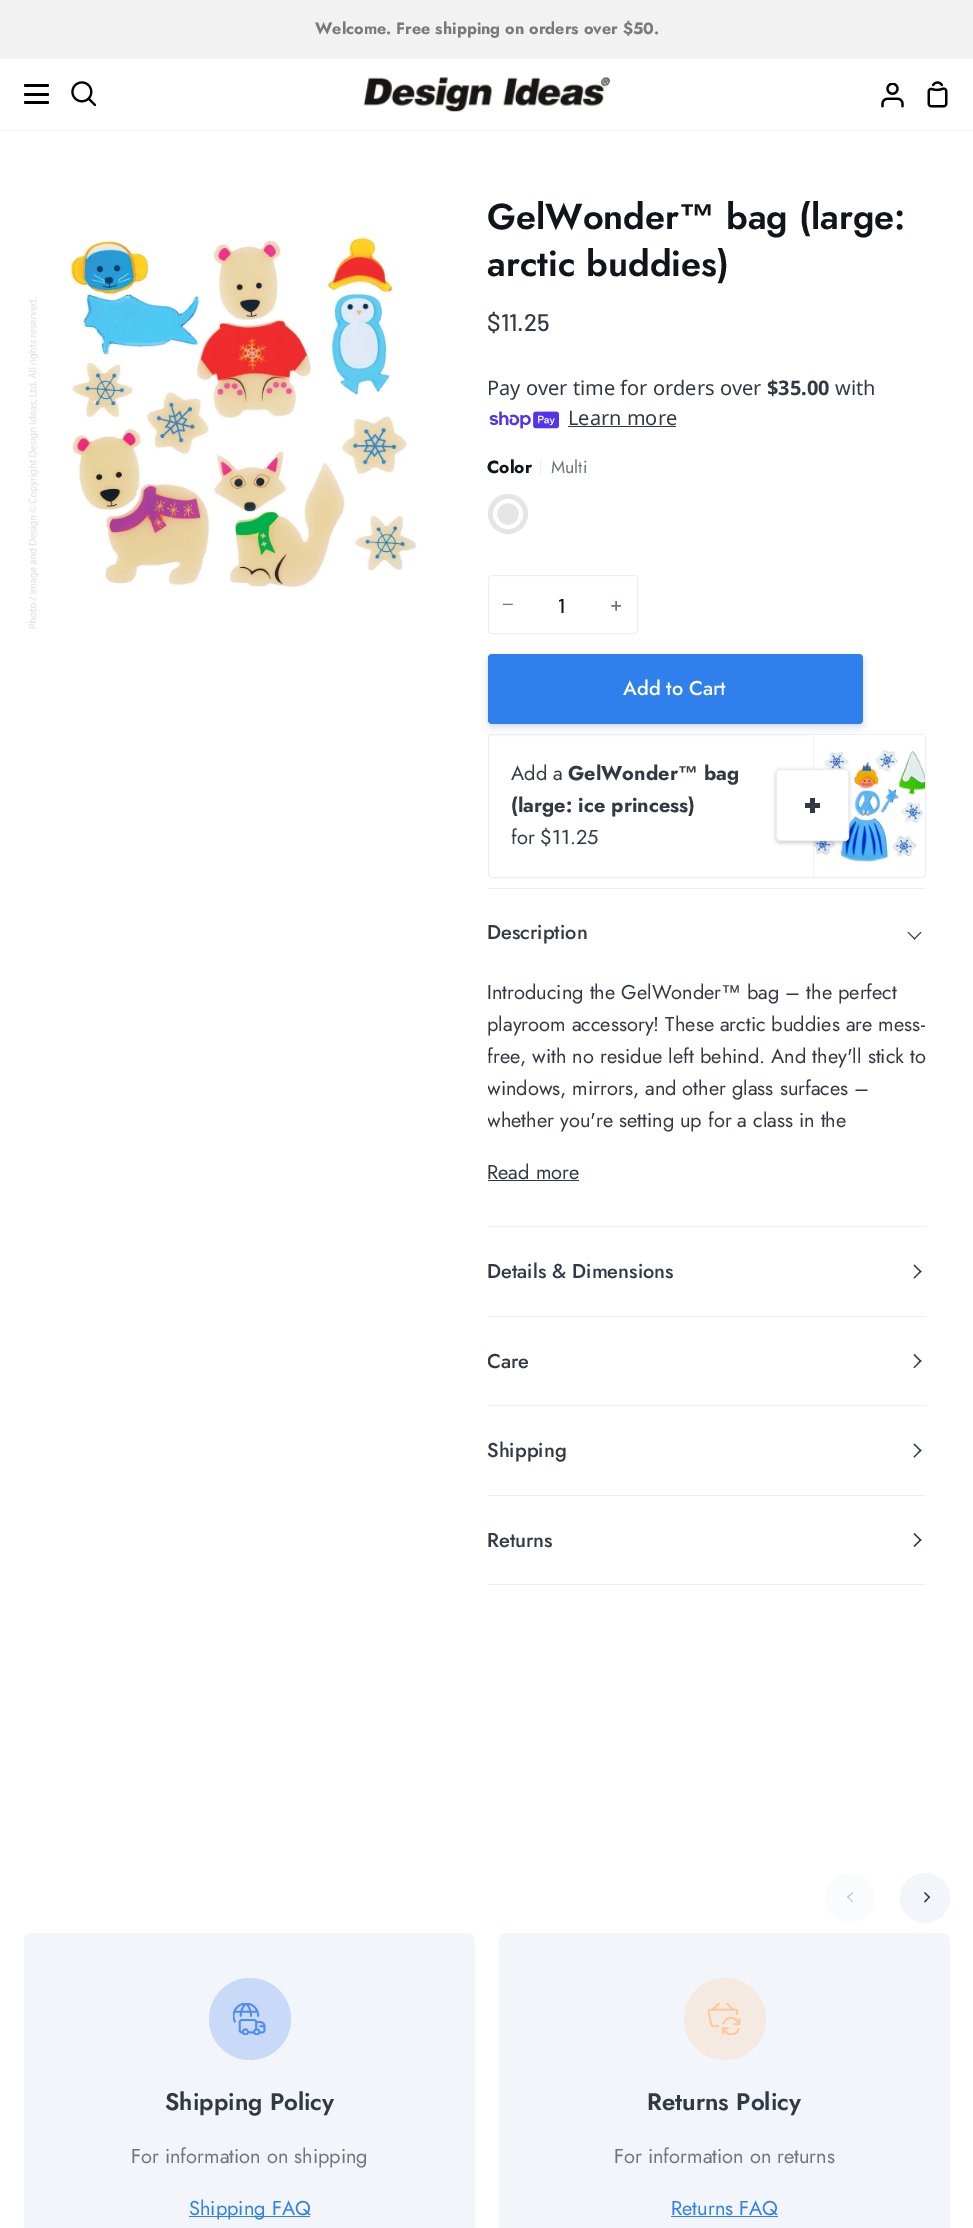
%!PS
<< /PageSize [973 2228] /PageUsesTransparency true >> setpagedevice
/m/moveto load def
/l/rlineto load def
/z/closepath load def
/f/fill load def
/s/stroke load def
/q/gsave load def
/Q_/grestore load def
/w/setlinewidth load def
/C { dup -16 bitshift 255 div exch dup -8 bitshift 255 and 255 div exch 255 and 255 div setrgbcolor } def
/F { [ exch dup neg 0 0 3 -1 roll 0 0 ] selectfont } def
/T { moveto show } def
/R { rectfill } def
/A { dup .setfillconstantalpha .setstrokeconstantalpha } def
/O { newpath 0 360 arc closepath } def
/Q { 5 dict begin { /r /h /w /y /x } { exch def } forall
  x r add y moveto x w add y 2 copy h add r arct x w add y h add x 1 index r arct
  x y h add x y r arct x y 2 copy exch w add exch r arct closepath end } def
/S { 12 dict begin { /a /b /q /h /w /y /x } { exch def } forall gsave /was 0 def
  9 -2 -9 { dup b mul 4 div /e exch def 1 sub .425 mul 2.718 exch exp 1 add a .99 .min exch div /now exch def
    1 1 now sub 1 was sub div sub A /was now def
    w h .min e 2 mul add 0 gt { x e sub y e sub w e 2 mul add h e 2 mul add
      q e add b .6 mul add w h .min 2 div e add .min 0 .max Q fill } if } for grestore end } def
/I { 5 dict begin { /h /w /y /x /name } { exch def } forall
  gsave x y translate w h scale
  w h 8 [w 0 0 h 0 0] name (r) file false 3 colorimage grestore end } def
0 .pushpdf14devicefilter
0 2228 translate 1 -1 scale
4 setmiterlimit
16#FFFFFF C
0 0 973 2228 R
16#F2F2F2 C
0 130 973 1 R
0 0 973 59 R
/Jost-Bold 16.25 F
16#797979 C
(Welcome. Free shipping on orders over $50.) 315 34 T
16#000000 C
24 84 25 3 1.5 Q f
24 93 25 3 1.5 Q f
24 101 25 3 1.5 Q f
(1.rgb) 71 81 25 25 I
(2.rgb) 363 77 247 35 I
(3.rgb) 881 83 23 25 I
(4.rgb) 927 81 21 27 I
(5.rgb) 28 236 389 393 I
/Jost-SemiBold 36 F
16#10141B C
(GelWonder) 487 229 T
/LiberationSans-Bold 36 F
(™) 679 229 T
/Jost-SemiBold 36 F
(bag \(large:) 726 229 T
(arctic buddies\)) 487 276 T
/Barlow-Medium 24 F
16#323945 C
($11.25) 487 331 T
/NotoSans-Regular 20 F
(Pay over time for orders over) 487 395 T
/NotoSans-Bold 20 F
($35.00) 767 395 T
/NotoSans-Regular 20 F
(with) 835 395 T
(6.rgb) 489 411 70 18 I
(Learn more) 568 425 T
568 426 108 1 R
/Jost-Bold 17.5 F
16#10141B C
(Color) 487 473 T
16#EEEFF1 C
540 459 1 15 R
/Jost-Regular 17.5 F
16#70747D C
(Multi) 551 473 T
16#E5E5E5 C
508 514 20 O f
16#FFFFFF C
4 w
508 514 13 O s
16#EEEFF1 C
1 w
488.5 575.5 149 58 3.5 Q s
/LiberationSans-Regular 20 F
16#70747D C
(−) 502 611 T
/Barlow-Medium 20 F
16#10141B C
(1) 558 613 T
/Jost-Regular 20 F
16#70747D C
(+) 610 611 T
16#0A3979 C
488 655 375 70 4 2 .1 S
16#EEEFF1 C
488.5 734.5 437 143 3.5 Q s
16#0A3979 C
488 659 375 70 4 4 .1 S
16#2F80ED C
488 654 375 70 4 Q f
/Jost-Medium 20 F
16#FFFFFF C
(Add to Cart) 623 695 T
/Jost-Regular 20 F
16#323945 C
(Add a) 511 780 T
/Jost-Bold 20 F
(GelWonder) 568 780 T
/LiberationSans-Bold 20 F
(™) 678 780 T
/Jost-Bold 20 F
(bag) 704 780 T
(\(large: ice princess\)) 511 812 T
/Jost-Regular 20 F
(for $11.25) 511 844 T
16#EEEFF1 C
813 735 1 141 R
(7.rgb) 813 735 112 141 I
16#000000 C
776 770 73 73 4 2 .2 S
16#FFFFFF C
776.5 769.5 72 71 3.5 Q q f Q_
16#EEEFF1 C
s
16#323945 C
805 803 15 5 R
810 798 5 15 R
16#EEEFF1 C
488 888 438 1 R
488 1226 438 1 R
/Jost-Medium 20 F
16#323945 C
(Description) 487 939 T
913.5 939 m 7 -7 l 1 .5 l -7 7 l z f
907.5 932.5 m 1 -.5 l 7 7 l -1 .5 l z f
/Jost-Regular 20 F
(Introducing the GelWonder) 487 999 T
/LiberationSans-Regular 20 F
(™) 721 999 T
/Jost-Regular 20 F
(bag – the perfect) 747 999 T
(playroom accessory! These arctic buddies are mess-) 487 1031 T
q
488 976 438 250 rectclip
(free, with no residue left behind. And they'll stick to) 487 1063 T
(windows, mirrors, and other glass surfaces –) 487 1095 T
(whether you're setting up for a class in the) 487 1127 T
Q_
(Read more) 487 1179 T
488 1180 91 1 R
16#EEEFF1 C
488 1316 438 1 R
/Jost-Medium 20 F
16#323945 C
(Details & Dimensions) 487 1278 T
920.5 1272.5 m -7 -7 l 1 -1 l 7 7 l z f
914.5 1278.5 m -1 -.5 l 7 -7.5 l 1 1 l z f
16#EEEFF1 C
488 1405 438 1 R
q
488 888 438 697 rectclip
16#323945 C
(Care) 487 1368 T
Q_
16#323945 C
920.5 1362 m -7 -7 l 1 -1 l 7 7 l z f
914.5 1368 m -1 -.5 l 7 -7.5 l 1 1 l z f
16#EEEFF1 C
488 1495 438 1 R
16#323945 C
(Shipping) 487 1457 T
920.5 1451.5 m -7 -7 l 1 -1 l 7 7 l z f
914.5 1457.5 m -1 -.5 l 7 -7.5 l 1 1 l z f
16#EEEFF1 C
488 1584 438 1 R
16#323945 C
(Returns) 487 1547 T
920.5 1541 m -7 -7 l 1 -1 l 7 7 l z f
914.5 1547 m -1 -1 l 7 -7 l 1 1 l z f
16#FAFBFD C
850 1898 25 O f
16#C6C7CB C
847 1897 m 5.5 -5 l .5 1 l -5 5 l z f
847 1897 m 1 -.5 l 5 5 l -.5 1 l z f
16#F2F5FA C
925 1898 25 O f
16#323945 C
925 1892 m 5 5 l -1 1 l -5 -5 l z f
929 1896.5 m 1 .5 l -5 5.5 l -1 -1 l z f
16#F2F5FA C
24 1933 451 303 8 Q f
(8.rgb) 233 2003 33 32 I
0.25 A
16#4F8BF2 C
250 2019 41 O f
/Jost-SemiBold 24 F
1 A
16#323945 C
(Shipping Policy) 165 2110 T
/Jost-Regular 20 F
16#70747D C
(For information on shipping) 131 2163 T
16#2F80ED C
189 2216 121 1 R
(Shipping FAQ) 189 2215 T
16#F2F5FA C
499 1933 451 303 8 Q f
(9.rgb) 708 2003 33 32 I
0.25 A
16#FFC896 C
725 2019 41 O f
/Jost-SemiBold 24 F
1 A
16#323945 C
(Returns Policy) 647 2110 T
/Jost-Regular 20 F
16#70747D C
(For information on returns) 614 2163 T
16#2F80ED C
(Returns FAQ) 671 2215 T
671 2216 107 1 R
.poppdf14devicefilter showpage
